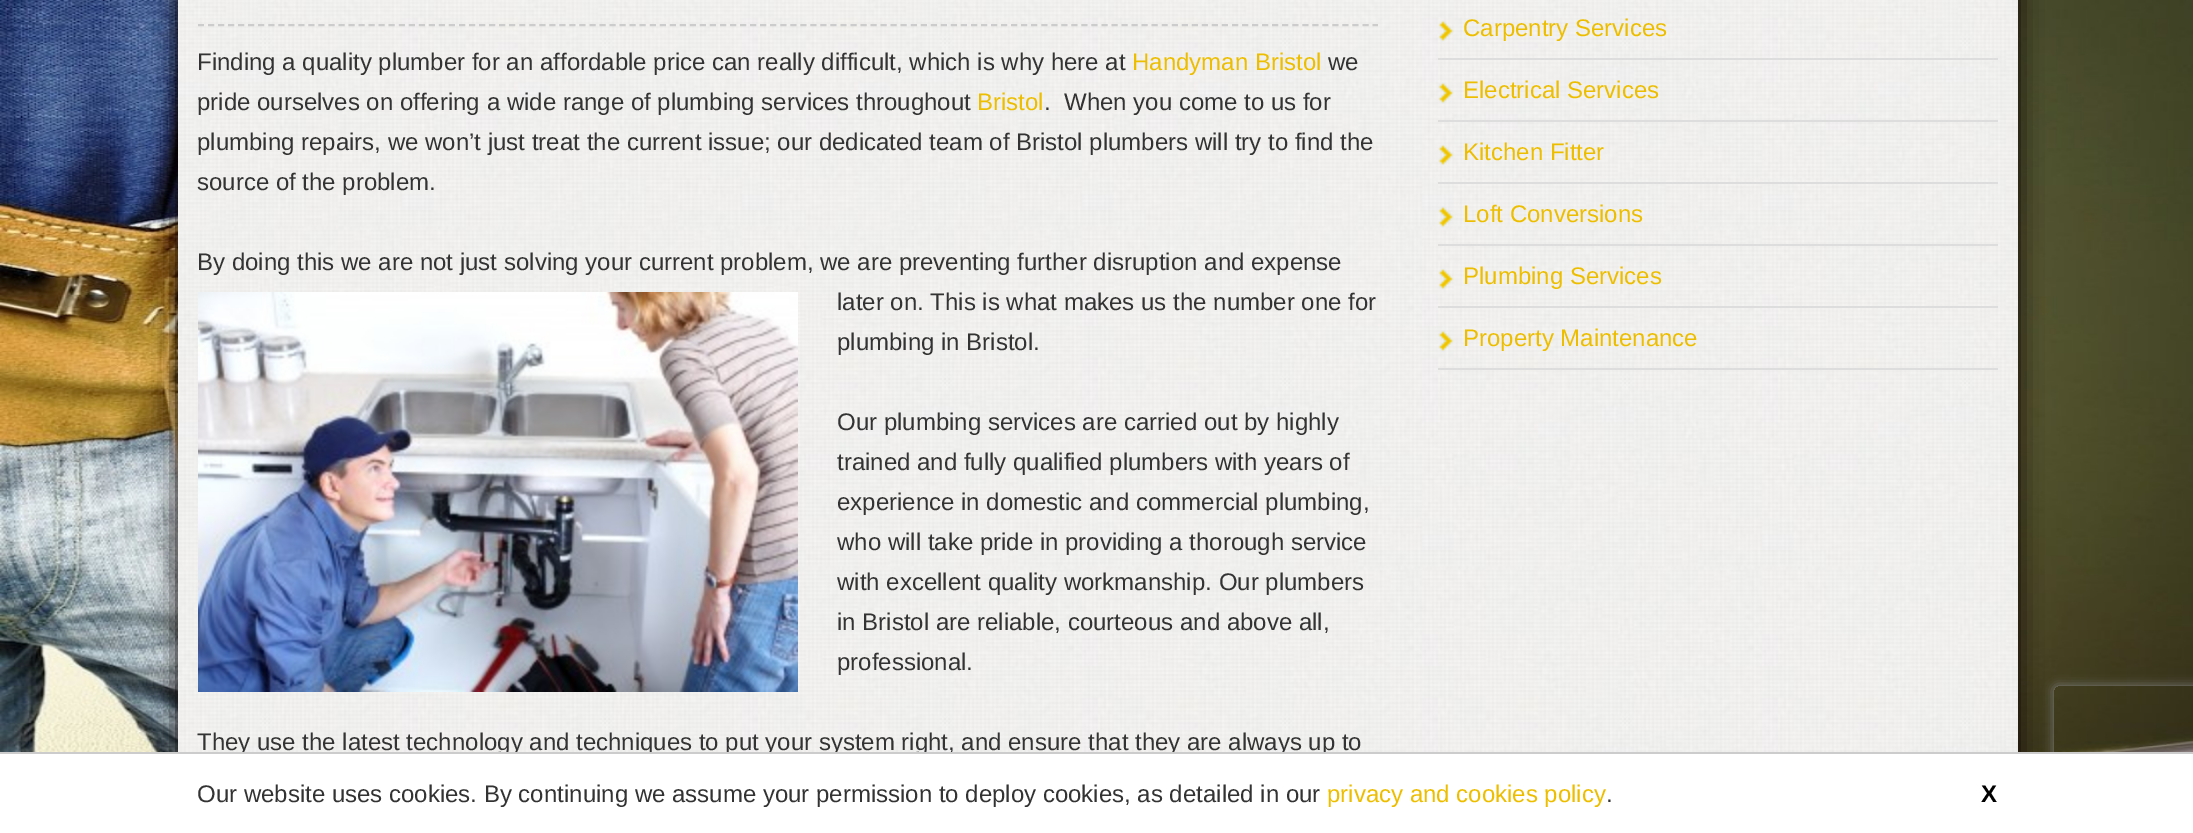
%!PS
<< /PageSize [2193 833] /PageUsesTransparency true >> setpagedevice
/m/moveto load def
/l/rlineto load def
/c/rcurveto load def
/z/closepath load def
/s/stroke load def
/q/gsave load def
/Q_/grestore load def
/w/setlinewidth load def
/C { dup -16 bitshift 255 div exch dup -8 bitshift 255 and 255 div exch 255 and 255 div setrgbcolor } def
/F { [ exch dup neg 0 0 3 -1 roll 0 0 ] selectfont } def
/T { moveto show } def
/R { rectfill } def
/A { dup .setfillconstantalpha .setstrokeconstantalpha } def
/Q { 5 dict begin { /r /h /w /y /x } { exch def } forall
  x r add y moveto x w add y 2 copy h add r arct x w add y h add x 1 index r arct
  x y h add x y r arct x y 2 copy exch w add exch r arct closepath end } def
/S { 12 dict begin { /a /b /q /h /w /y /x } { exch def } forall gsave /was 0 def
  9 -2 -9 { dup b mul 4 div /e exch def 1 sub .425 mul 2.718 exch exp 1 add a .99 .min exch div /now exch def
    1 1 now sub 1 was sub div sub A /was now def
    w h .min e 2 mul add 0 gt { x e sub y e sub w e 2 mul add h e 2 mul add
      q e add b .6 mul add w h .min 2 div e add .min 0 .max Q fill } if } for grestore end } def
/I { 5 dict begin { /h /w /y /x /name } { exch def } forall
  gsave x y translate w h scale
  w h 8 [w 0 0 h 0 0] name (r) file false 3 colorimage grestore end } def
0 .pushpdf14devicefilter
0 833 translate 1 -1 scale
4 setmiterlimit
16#FFFFFF C
0 0 2193 833 R
(1.rgb) 0 0 2193 752 I
16#0A0000 C
178 -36 1840 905 0 12 1 S
(2.rgb) 178 0 1840 752 I
16#CCCCCC C
2 w
[6 4.04] 0 setdash
198 25 m 1180 0 l s
/LiberationSans-Regular 24 F
16#333333 C
(Finding a quality plumber for an affordable price can really difficult, which is why here at) 197 70 T
16#EDBE00 C
(Handyman Bristol) 1132 70 T
16#333333 C
(we) 1328 70 T
(pride ourselves on offering a wide range of plumbing services throughout) 197 110 T
16#EDBE00 C
(Bristol) 977 110 T
16#333333 C
(.  When you come to us for) 1044 110 T
(plumbing repairs, we won’t just treat the current issue; our dedicated team of Bristol plumbers will try to find the) 197 150 T
(source of the problem.) 197 190 T
(By doing this we are not just solving your current problem, we are preventing further disruption and expense) 197 270 T
(3.rgb) 198 292 600 400 I
(later on. This is what makes us the number one for) 837 310 T
(plumbing in Bristol.) 837 350 T
(Our plumbing services are carried out by highly) 837 430 T
(trained and fully qualified plumbers with years of) 837 470 T
(experience in domestic and commercial plumbing,) 837 510 T
(who will take pride in providing a thorough service) 837 550 T
(with excellent quality workmanship. Our plumbers) 837 590 T
(in Bristol are reliable, courteous and above all,) 837 630 T
(professional.) 837 670 T
(They use the latest technology and techniques to put your system right, and ensure that they are always up to) 197 750 T
16#DDDDDD C
1438 58 560 2 R
(4.rgb) 1438 20 16 22 I
16#EDBE00 C
(Carpentry Services) 1463 36 T
16#DDDDDD C
1438 120 560 2 R
(5.rgb) 1438 82 16 22 I
16#EDBE00 C
(Electrical Services) 1463 98 T
16#DDDDDD C
1438 182 560 2 R
(6.rgb) 1438 144 16 22 I
16#EDBE00 C
(Kitchen Fitter) 1463 160 T
16#DDDDDD C
1438 244 560 2 R
(7.rgb) 1438 206 16 22 I
16#EDBE00 C
(Loft Conversions) 1463 222 T
16#DDDDDD C
1438 306 560 2 R
(8.rgb) 1438 268 16 22 I
16#EDBE00 C
(Plumbing Services) 1463 284 T
16#DDDDDD C
1438 368 560 2 R
(9.rgb) 1438 330 16 22 I
16#EDBE00 C
(Property Maintenance) 1463 346 T
q
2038 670 m 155 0 l 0 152 l -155 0 l z 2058 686 m 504 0 l 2 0 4 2 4 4 c 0 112 l 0 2 -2 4 -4 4 c -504 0 l -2 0 -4 -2 -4 -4 c 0 -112 l 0 -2 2 -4 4 -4 c z eoclip newpath
16#808080 C
2054 686 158 120 4 5 1 S
Q_
16#FFFFFF C
150 754 2043 79 R
16#CCCCCC C
0 752 2193 2 R
16#333333 C
(Our website uses cookies. By continuing we assume your permission to deploy cookies, as detailed in our) 197 802 T
16#EDBE00 C
(privacy and cookies policy) 1327 802 T
16#333333 C
(.) 1606 802 T
/LiberationSans-Bold 24 F
16#000000 C
(X) 1981 802 T
.poppdf14devicefilter showpage
